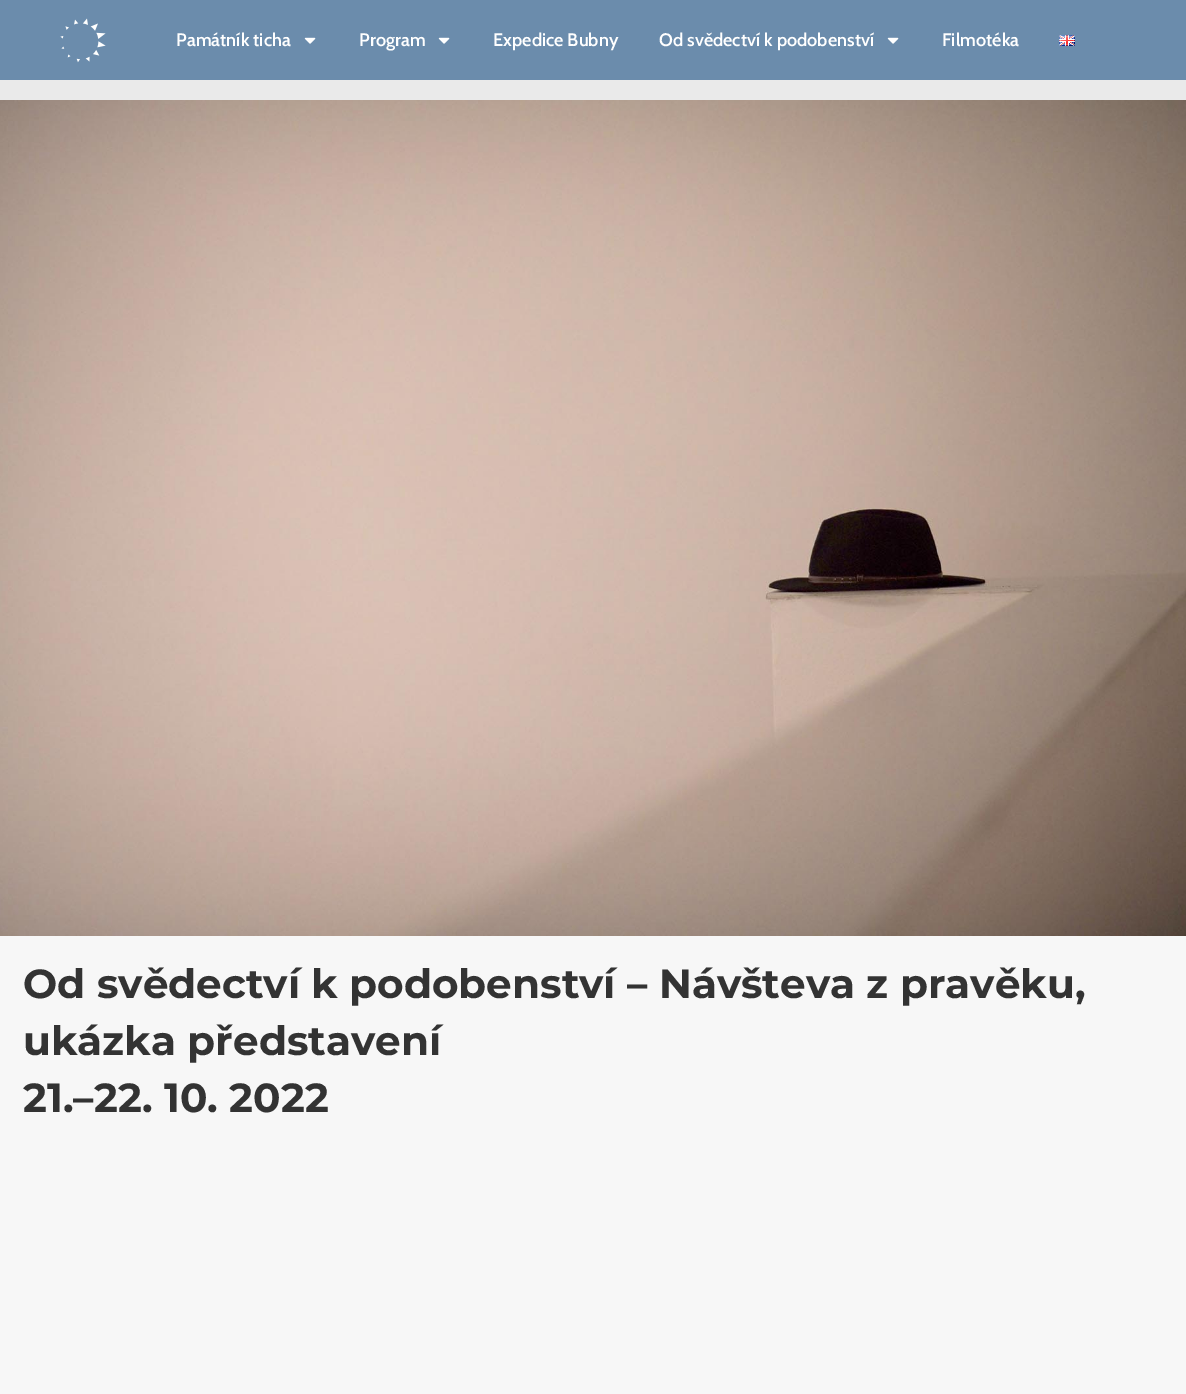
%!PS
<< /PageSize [1186 1394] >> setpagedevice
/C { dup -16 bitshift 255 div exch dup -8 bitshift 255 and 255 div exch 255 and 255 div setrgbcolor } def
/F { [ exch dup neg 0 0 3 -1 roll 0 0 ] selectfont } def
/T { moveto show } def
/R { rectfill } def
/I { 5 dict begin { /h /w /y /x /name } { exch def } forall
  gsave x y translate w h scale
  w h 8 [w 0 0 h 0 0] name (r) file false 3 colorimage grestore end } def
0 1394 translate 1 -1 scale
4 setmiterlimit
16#FFFFFF C
0 0 1186 1394 R
16#6B8CAC C
0 0 1186 80 R
(1.rgb) 60 18 46 45 I
/Cabin-SemiBold 18.1 F
16#FFFFFF C
(Památník ticha) 176 46 T
(2.rgb) 304 37 12 7 I
(Program) 359 46 T
(2.rgb) 438 37 12 7 I
(Expedice Bubny) 493 46 T
(Od svědectví k podobenství) 659 46 T
(2.rgb) 887 37 12 7 I
(Filmotéka) 942 46 T
(3.rgb) 1059 35 16 11 I
16#EAEAEA C
0 80 1186 20 R
(4.rgb) 0 100 1186 836 I
16#F7F7F7 C
0 936 1186 458 R
/Montserrat-Bold 40.55 F
16#333333 C
(Od svědectví k podobenství – Návšteva z pravěku,) 23 998 T
(ukázka představení) 23 1055 T
(21.–22. 10. 2022) 23 1112 T
showpage
